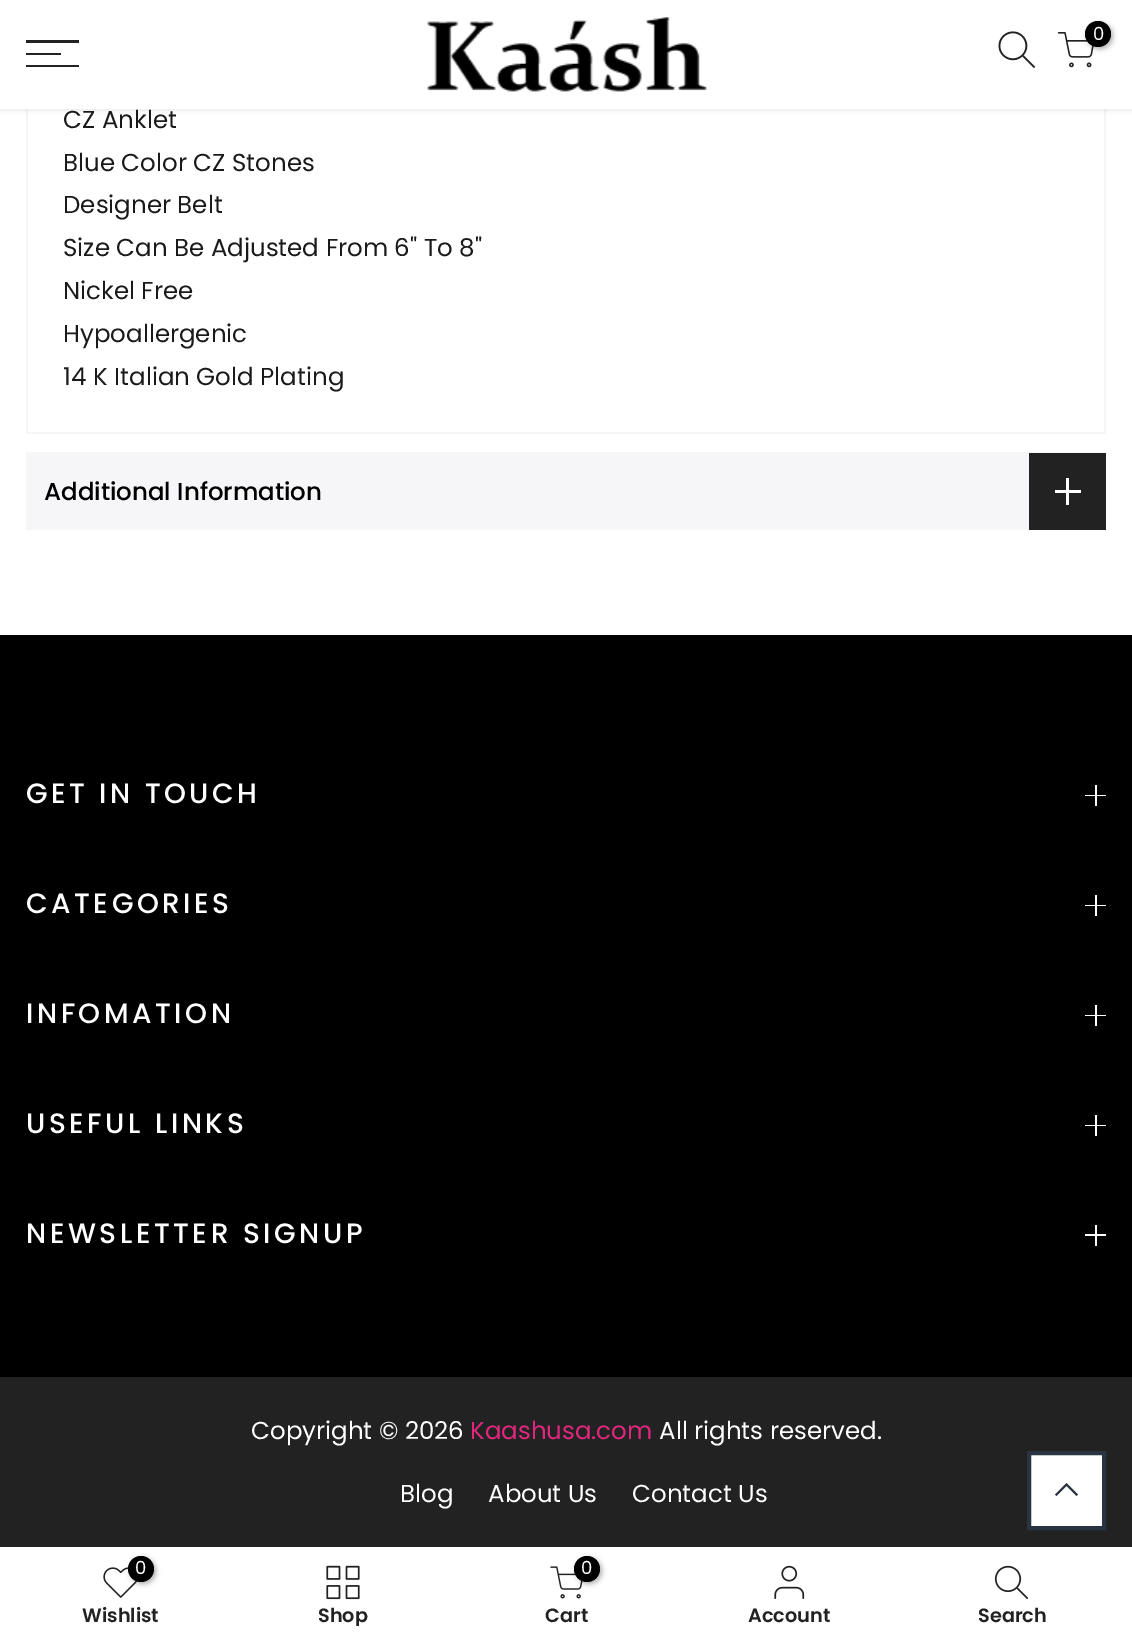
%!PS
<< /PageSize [1132 1643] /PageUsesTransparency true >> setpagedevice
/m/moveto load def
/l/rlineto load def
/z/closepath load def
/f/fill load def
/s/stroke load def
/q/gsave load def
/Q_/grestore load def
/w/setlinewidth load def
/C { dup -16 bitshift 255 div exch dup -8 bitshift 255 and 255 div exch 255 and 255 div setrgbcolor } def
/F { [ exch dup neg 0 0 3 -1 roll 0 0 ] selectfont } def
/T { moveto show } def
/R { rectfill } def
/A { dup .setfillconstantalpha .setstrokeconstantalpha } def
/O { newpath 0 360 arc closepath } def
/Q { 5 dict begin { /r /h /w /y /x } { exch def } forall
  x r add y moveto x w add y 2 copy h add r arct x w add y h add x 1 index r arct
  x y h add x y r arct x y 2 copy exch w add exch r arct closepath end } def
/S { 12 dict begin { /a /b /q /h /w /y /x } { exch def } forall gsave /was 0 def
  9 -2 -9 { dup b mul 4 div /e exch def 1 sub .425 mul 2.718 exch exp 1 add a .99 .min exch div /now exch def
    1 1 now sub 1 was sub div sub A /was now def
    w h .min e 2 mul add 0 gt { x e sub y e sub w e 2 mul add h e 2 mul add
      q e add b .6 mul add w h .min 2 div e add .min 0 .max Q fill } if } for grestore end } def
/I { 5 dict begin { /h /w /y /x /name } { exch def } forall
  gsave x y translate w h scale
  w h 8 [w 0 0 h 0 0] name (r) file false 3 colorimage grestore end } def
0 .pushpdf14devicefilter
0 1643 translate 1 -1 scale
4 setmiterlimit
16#FFFFFF C
0 0 1132 1643 R
16#F5F5F5 C
1104 109 2 325 R
26 432 1080 2 R
26 109 2 325 R
16#000000 C
0 2 1132 108 0 2.5 .1 S
16#FFFFFF C
0 0 1132 109 R
(1.rgb) 426 17 281 75 I
(2.rgb) 998 31 37 37 I
(3.rgb) 1057 32 37 36 I
16#000000 C
1087 23 26 26 13 2.5 .3 S
1098 34 13 O f
/Poppins-Regular 18 F
16#FFFFFF C
(0) 1093 40 T
16#222222 C
26 40 53 3 R
26 53 35 2 R
26 65 53 2 R
/Poppins-Regular 24.5 F
16#1A1A1A C
(CZ Anklet) 63 128 T
(Blue Color CZ Stones) 63 171 T
(Designer Belt) 63 213 T
(Size Can Be Adjusted From 6" To 8") 63 256 T
(Nickel Free) 63 299 T
(Hypoallergenic) 63 342 T
(14 K Italian Gold Plating) 63 385 T
16#F6F6F8 C
26 452 1080 78 R
/Poppins-Medium 24.5 F
16#000000 C
(Additional Information) 44 500 T
16#222222 C
1029 453 77 77 R
16#FFFFFF C
1066 478 3 27 R
1055 490 26 3 R
16#000000 C
0 635 1132 742 R
/Poppins-Medium 28 F
16#FFFFFF C
26 803 m 3.5 0 (GET IN TOUCH) ashow
1095 785 2 21 R
1085 795 21 1 R
26 913 m 3.5 0 (CATEGORIES) ashow
1095 895 2 21 R
1085 905 21 1 R
26 1023 m 3.5 0 (INFOMATION) ashow
1095 1005 2 21 R
1085 1015 21 1 R
26 1133 m 3.5 0 (USEFUL LINKS) ashow
1095 1115 2 21 R
1085 1125 21 1 R
26 1243 m 3.5 0 (NEWSLETTER SIGNUP) ashow
1095 1225 2 21 R
1085 1234 21 2 R
16#222222 C
0 1377 1132 170 R
/Poppins-Regular 24.5 F
16#FFFFFF C
(Copyright © 2026) 251 1439 T
16#E0267D C
(Kaashusa.com) 470 1439 T
16#FFFFFF C
(All rights reserved.) 659 1439 T
(Blog) 400 1502 T
(About Us) 488 1502 T
(Contact Us) 632 1502 T
1029 1453 m 75 0 l 0 75 l -75 0 l z q f Q_
16#293341 C
4 w
s
1068 1484.5 m -1.5 -1.5 l -11.5 11.5 l 1.5 1.5 l 10 -10 l 10 10 l 1.5 -1.5 l z f
(4.rgb) 103 1567 35 31 I
16#000000 C
130 1558 26 26 13 2.5 .3 S
141 1569 13 O f
/Poppins-Regular 18 F
16#FFFFFF C
(0) 135 1574 T
/Poppins-SemiBold 19.25 F
16#222222 C
(Wishlist) 82 1622 T
(5.rgb) 326 1565 34 35 I
q
249 1607 189 19 rectclip
(Shop) 318 1622 T
Q_
(6.rgb) 550 1566 33 33 I
16#000000 C
576 1558 26 26 13 2.5 .3 S
587 1569 13 O f
/Poppins-Regular 18 F
16#FFFFFF C
(0) 581 1574 T
/Poppins-SemiBold 19.25 F
16#222222 C
(Cart) 545 1622 T
(7.rgb) 774 1565 31 34 I
(Account) 748 1622 T
(8.rgb) 994 1565 35 34 I
(Search) 978 1622 T
.poppdf14devicefilter showpage
